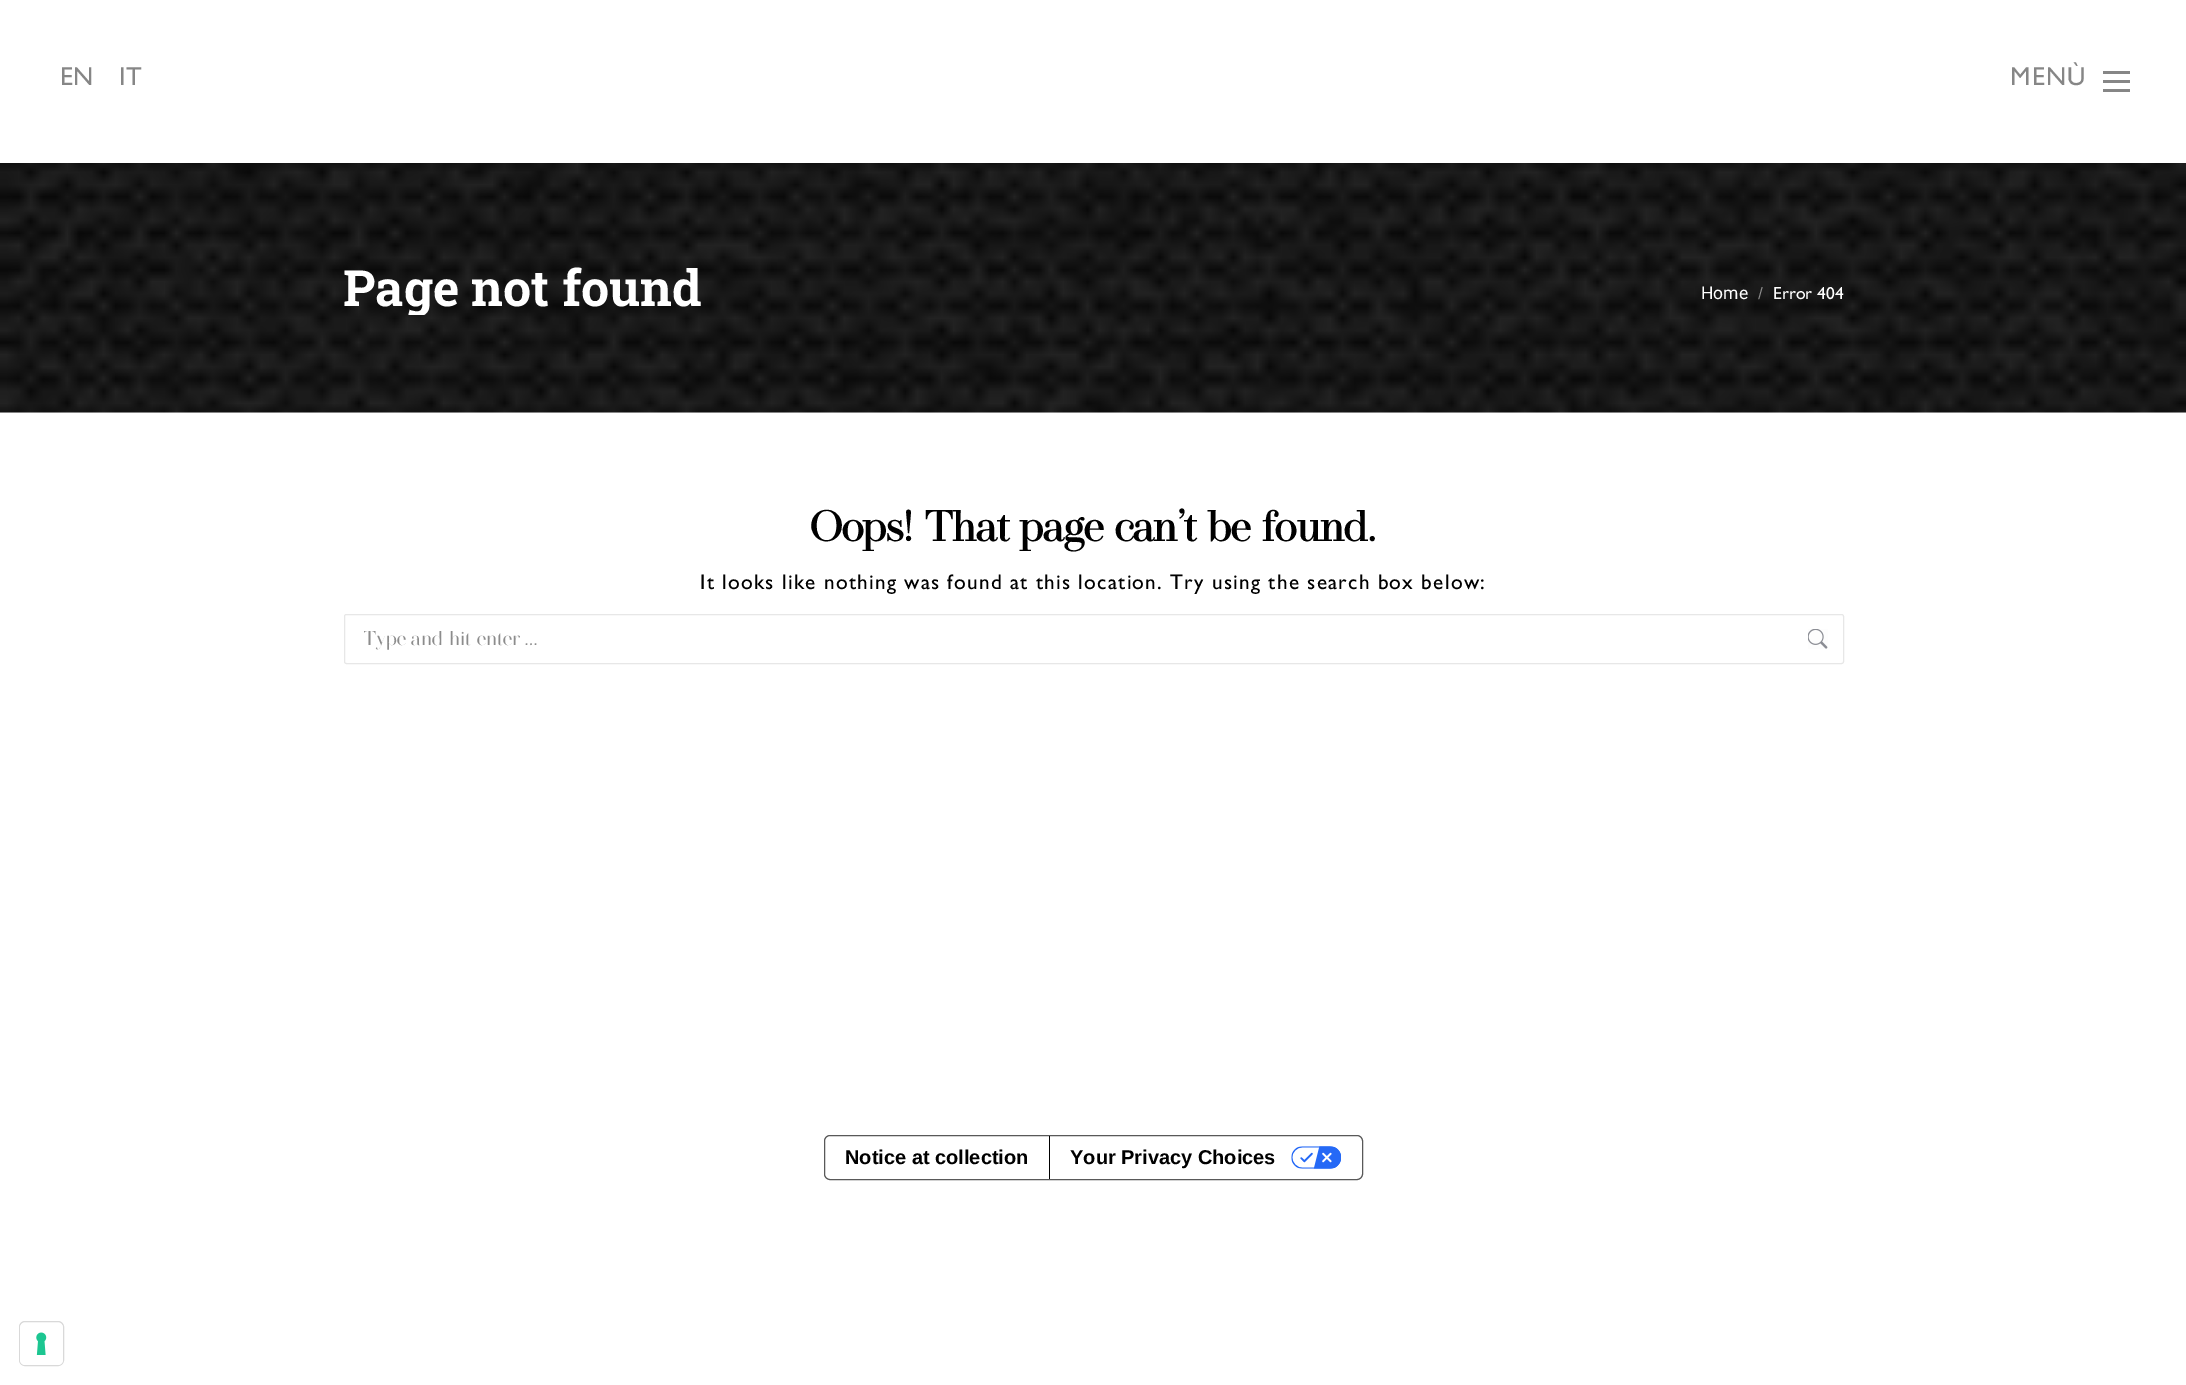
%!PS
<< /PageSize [2186 1385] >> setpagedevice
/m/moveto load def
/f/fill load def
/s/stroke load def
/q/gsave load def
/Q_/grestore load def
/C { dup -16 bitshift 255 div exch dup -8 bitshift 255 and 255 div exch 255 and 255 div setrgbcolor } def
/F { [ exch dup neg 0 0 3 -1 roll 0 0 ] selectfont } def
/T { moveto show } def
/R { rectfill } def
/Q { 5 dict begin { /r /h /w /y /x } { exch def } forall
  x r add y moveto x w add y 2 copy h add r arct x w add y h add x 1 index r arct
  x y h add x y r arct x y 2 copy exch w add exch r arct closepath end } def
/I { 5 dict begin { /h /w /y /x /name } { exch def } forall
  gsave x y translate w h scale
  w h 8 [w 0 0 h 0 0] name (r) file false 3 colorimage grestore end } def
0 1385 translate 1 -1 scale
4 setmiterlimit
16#FFFFFF C
0 0 2186 1385 R
/GillSans-Regular 26 F
16#868686 C
(EN) 60 85 T
(IT) 119 85 T
2010 85 m 1.25 0 (MENÙ) ashow
2103 71 27 3 R
2103 80 27 3 R
2103 89 27 3 R
16#F6F6F6 C
0 412 2186 1 R
(1.rgb) 0 163 2186 250 I
q
344 260 359 55 rectclip
/RobotoSlab-Bold 50 F
16#FFFFFF C
(Page not found) 343 306 T
Q_
/Roboto-Regular 17.5 F
16#FFFFFF C
(Home) 1701 299 T
/GillSans-Regular 17.5 F
16#8C8C8C C
(/) 1758 299 T
16#FFFFFF C
(Error 404) 1773 299 T
/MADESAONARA-Bold 42.5 F
16#000000 C
(Oops! That page can’t be found.) 810 541 T
/GillSans-Regular 21.25 F
700 589 m 1.25 0 (It looks like nothing was found at this location. Try using the search box below:) ashow
16#E7E7E7 C
344.5 614.5 1499 49 2 Q s
q
364 626 1441 24 rectclip
/MADESAONARA-Regular 20 F
16#8C8C8C C
(Type and hit enter …) 363 645 T
Q_
(2.rgb) 1808 629 20 20 I
16#595959 C
824.5 1135.5 538 44 5.5 Q s
/LiberationSans-Bold 20 F
16#000000 C
(Notice at collection) 845 1164 T
1049 1136 1 43 R
(Your Privacy Choices) 1070 1164 T
(3.rgb) 1291 1146 50 23 I
16#D9D9D9 C
19.5 1321.5 44 44 5.5 Q s
16#FFFFFF C
20 1323 43 42 5 Q f
(4.rgb) 36 1332 11 23 I
showpage
